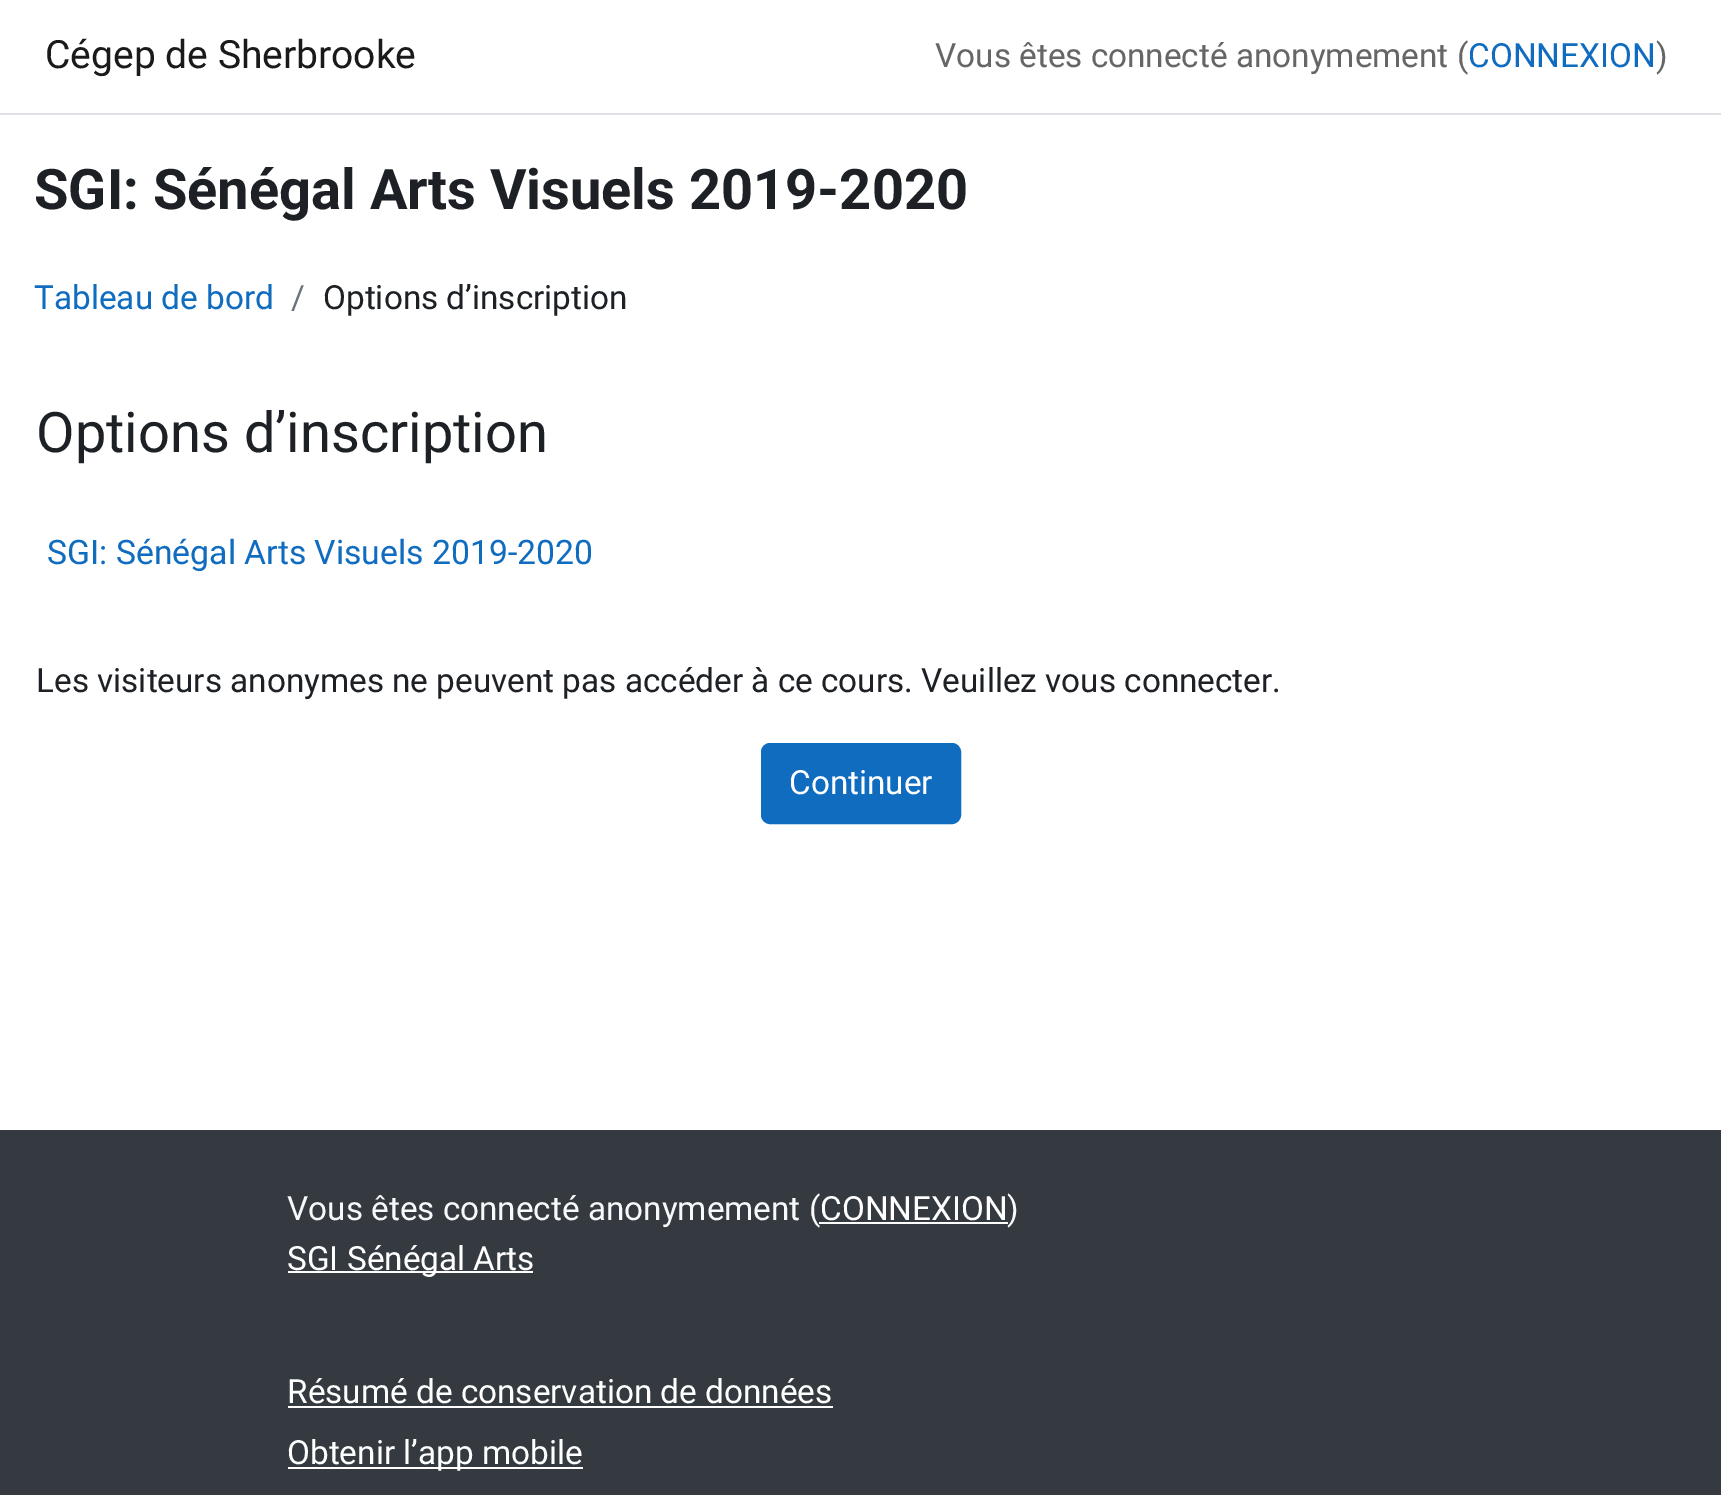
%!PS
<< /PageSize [1721 1495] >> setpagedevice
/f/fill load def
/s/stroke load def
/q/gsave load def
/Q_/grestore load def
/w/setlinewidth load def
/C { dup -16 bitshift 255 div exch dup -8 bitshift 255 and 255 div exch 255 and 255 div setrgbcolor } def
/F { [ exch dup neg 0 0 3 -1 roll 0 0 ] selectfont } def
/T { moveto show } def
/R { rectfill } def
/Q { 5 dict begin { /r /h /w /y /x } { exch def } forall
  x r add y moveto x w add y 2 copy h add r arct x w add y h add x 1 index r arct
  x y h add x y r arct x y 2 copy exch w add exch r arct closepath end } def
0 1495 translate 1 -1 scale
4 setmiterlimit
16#FFFFFF C
0 0 1721 1495 R
16#DEE2E6 C
0 113 1721 2 R
/Roboto-Regular 39 F
16#1A1A1A C
(Cégep de Sherbrooke) 45 68 T
/Roboto-Regular 33.3 F
16#666666 C
(Vous êtes connecté anonymement \() 935 67 T
16#0F6CBF C
(CONNEXION) 1468 67 T
16#666666 C
(\)) 1656 67 T
/Roboto-Bold 56 F
16#1D2125 C
(SGI: Sénégal Arts Visuels 2019-2020) 34 209 T
/Roboto-Regular 33.3 F
16#0F6CBF C
(Tableau de bord) 34 309 T
16#6A737B C
(/) 291 309 T
16#1D2125 C
(Options d’inscription) 323 309 T
/Roboto-Regular 56 F
(Options d’inscription) 36 452 T
/Roboto-Regular 33.75 F
16#0F6CBF C
(SGI: Sénégal Arts Visuels 2019-2020) 47 564 T
/Roboto-Regular 33.3 F
16#1D2125 C
(Les visiteurs anonymes ne peuvent pas accéder à ce cours. Veuillez vous connecter.) 36 692 T
16#0F6CBF C
762 744 198 79 8 Q q f Q_
2 w
s
16#FFFFFF C
(Continuer) 789 794 T
16#343A40 C
0 1130 1721 365 R
16#F8F9FA C
(Vous êtes connecté anonymement \() 287 1220 T
16#FFFFFF C
(CONNEXION) 820 1220 T
819 1222 189 2 R
16#F8F9FA C
(\)) 1007 1220 T
16#FFFFFF C
288 1271 245 2 R
(SGI Sénégal Arts) 287 1270 T
(Résumé de conservation de données) 287 1403 T
288 1406 545 2 R
288 1467 295 2 R
(Obtenir l’app mobile) 287 1464 T
showpage
